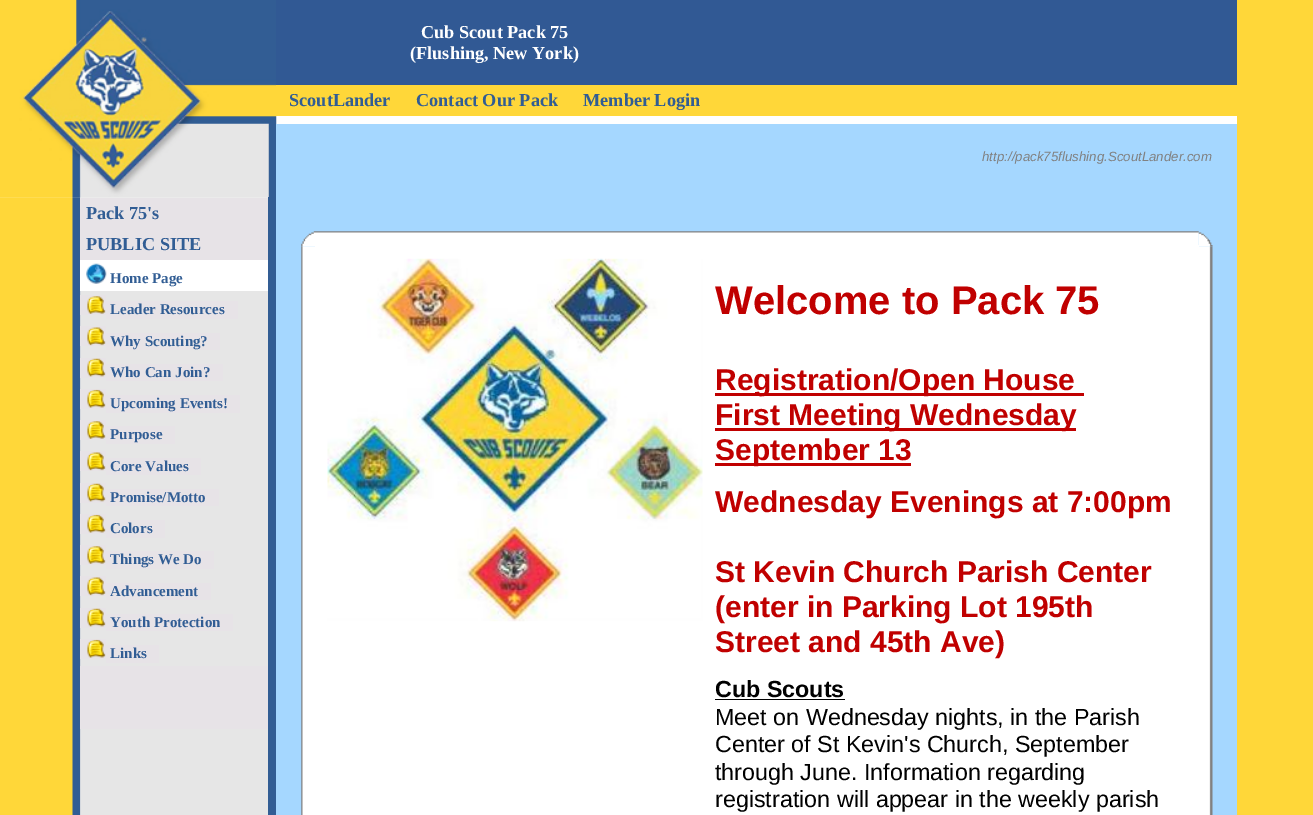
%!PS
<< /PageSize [1313 815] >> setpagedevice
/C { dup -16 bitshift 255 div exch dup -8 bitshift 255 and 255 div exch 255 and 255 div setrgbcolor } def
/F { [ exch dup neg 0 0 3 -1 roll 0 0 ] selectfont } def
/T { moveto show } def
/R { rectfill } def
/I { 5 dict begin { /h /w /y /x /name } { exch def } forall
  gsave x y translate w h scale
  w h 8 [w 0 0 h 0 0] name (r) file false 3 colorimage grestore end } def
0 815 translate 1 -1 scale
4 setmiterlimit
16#FFFFFF C
0 0 1313 815 R
(1.rgb) 0 0 277 198 I
(2.rgb) 0 197 268 618 I
(3.rgb) 0 197 80 618 I
16#E7E3E7 C
80 198 188 62 R
/LiberationSerif-Bold 18.25 F
16#315D94 C
(Pack 75's) 86 219 T
(PUBLIC SITE) 86 250 T
16#FFFFFF C
80 260 188 31 R
(4.rgb) 86 263 21 21 I
/LiberationSerif-Bold 15 F
16#315D94 C
(Home Page) 110 283 T
16#E7E3E7 C
80 295 26 20 R
(5.rgb) 87 296 19 18 I
106 301 132 18 R
16#315D94 C
(Leader Resources) 110 314 T
16#E7E3E7 C
80 326 26 20 R
(6.rgb) 87 327 19 19 I
106 333 114 17 R
16#315D94 C
(Why Scouting?) 110 346 T
16#E7E3E7 C
80 358 26 20 R
(7.rgb) 87 358 19 19 I
106 364 117 17 R
16#315D94 C
(Who Can Join?) 110 377 T
16#E7E3E7 C
80 389 26 20 R
(8.rgb) 87 389 19 19 I
106 395 134 18 R
16#315D94 C
(Upcoming Events!) 110 408 T
16#E7E3E7 C
80 420 26 20 R
(5.rgb) 87 421 19 18 I
106 426 69 18 R
16#315D94 C
(Purpose) 110 439 T
16#E7E3E7 C
80 451 26 20 R
(6.rgb) 87 452 19 19 I
106 458 95 17 R
16#315D94 C
(Core Values) 110 471 T
16#E7E3E7 C
80 483 26 20 R
(7.rgb) 87 483 19 19 I
106 489 113 17 R
16#315D94 C
(Promise/Motto) 110 502 T
16#E7E3E7 C
80 514 26 20 R
(8.rgb) 87 514 19 19 I
106 520 59 18 R
16#315D94 C
(Colors) 110 533 T
16#E7E3E7 C
80 545 26 20 R
(5.rgb) 87 546 19 18 I
106 551 108 18 R
16#315D94 C
(Things We Do) 110 564 T
16#E7E3E7 C
80 576 26 20 R
(9.rgb) 87 577 19 19 I
106 583 105 17 R
16#315D94 C
(Advancement) 110 596 T
16#E7E3E7 C
80 608 26 20 R
(7.rgb) 87 608 19 19 I
106 614 127 17 R
16#315D94 C
(Youth Protection) 110 627 T
16#E7E3E7 C
80 639 26 20 R
(8.rgb) 87 639 19 19 I
106 645 53 18 R
16#315D94 C
(Links) 110 658 T
16#E7E3E7 C
80 666 188 63 R
16#325D94 C
268 197 8 618 R
16#315994 C
276 0 961 85 R
/LiberationSerif-Bold 18.25 F
16#FFFFFF C
(Cub Scout Pack 75) 421 38 T
(\(Flushing, New York\)) 410 59 T
16#FFD739 C
276 85 961 31 R
16#315D94 C
(ScoutLander) 289 106 T
(Contact Our Pack) 416 106 T
(Member Login) 583 106 T
16#A5D7FF C
276 124 961 691 R
/LiberationSans-Italic 13.3 F
16#818181 C
(http://pack75flushing.ScoutLander.com) 982 161 T
(10.rgb) 301 231 14 14 I
(11.rgb) 315 231 884 14 I
(12.rgb) 1198 232 14 13 I
(13.rgb) 301 245 14 2 I
16#FFFFFF C
315 245 884 1 R
(14.rgb) 1198 245 15 2 I
(15.rgb) 301 246 14 569 I
315 246 884 569 R
(16.rgb) 327 258 376 364 I
/LiberationSans-Bold 40 F
16#C00000 C
(Welcome to Pack 75) 715 314 T
715 393 369 3 R
/LiberationSans-Bold 30 F
(Registration/Open House) 715 390 T
715 428 361 3 R
(First Meeting Wednesday) 715 425 T
715 463 196 3 R
(September 13) 715 460 T
(Wednesday Evenings at 7:00pm) 715 512 T
(St Kevin Church Parish Center) 715 582 T
(\(enter in Parking Lot 195th) 715 617 T
(Street and 45th Ave\)) 715 652 T
/LiberationSans-Bold 23.3 F
16#000000 C
(Cub Scouts) 715 697 T
715 699 130 1 R
/LiberationSans-Regular 23.3 F
(Meet on Wednesday nights, in the Parish) 715 725 T
(Center of St Kevin's Church, September) 715 752 T
(through June. Information regarding) 715 780 T
(registration will appear in the weekly parish) 715 807 T
(17.rgb) 1199 246 14 569 I
16#FFD739 C
1237 0 76 815 R
showpage
